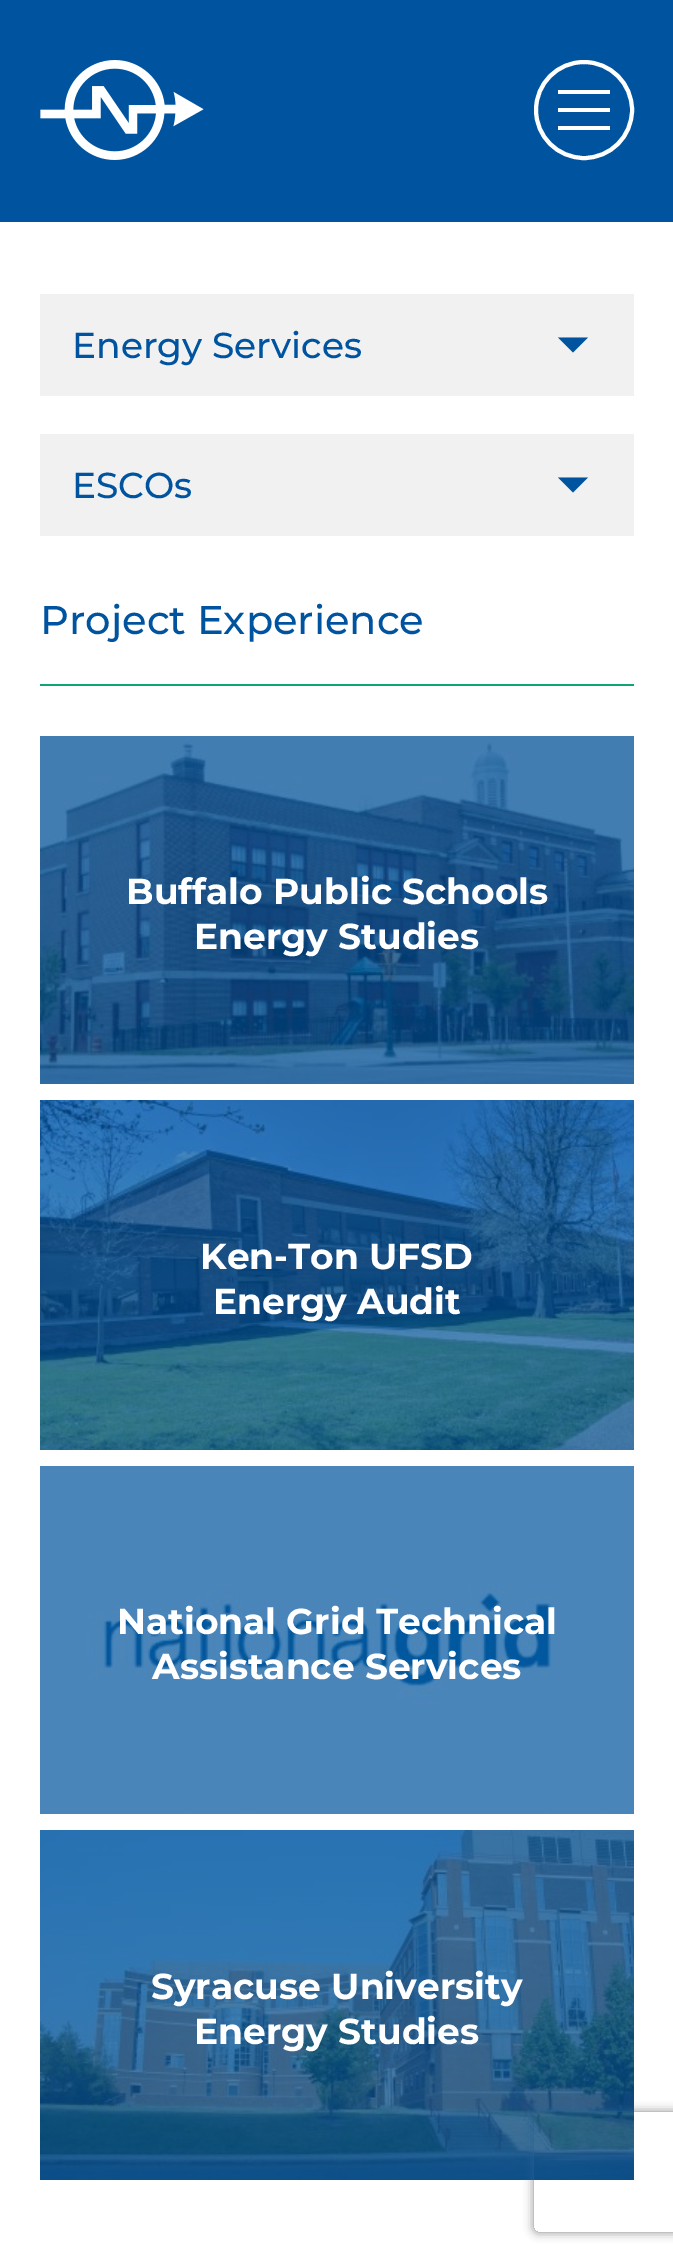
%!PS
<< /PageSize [673 2259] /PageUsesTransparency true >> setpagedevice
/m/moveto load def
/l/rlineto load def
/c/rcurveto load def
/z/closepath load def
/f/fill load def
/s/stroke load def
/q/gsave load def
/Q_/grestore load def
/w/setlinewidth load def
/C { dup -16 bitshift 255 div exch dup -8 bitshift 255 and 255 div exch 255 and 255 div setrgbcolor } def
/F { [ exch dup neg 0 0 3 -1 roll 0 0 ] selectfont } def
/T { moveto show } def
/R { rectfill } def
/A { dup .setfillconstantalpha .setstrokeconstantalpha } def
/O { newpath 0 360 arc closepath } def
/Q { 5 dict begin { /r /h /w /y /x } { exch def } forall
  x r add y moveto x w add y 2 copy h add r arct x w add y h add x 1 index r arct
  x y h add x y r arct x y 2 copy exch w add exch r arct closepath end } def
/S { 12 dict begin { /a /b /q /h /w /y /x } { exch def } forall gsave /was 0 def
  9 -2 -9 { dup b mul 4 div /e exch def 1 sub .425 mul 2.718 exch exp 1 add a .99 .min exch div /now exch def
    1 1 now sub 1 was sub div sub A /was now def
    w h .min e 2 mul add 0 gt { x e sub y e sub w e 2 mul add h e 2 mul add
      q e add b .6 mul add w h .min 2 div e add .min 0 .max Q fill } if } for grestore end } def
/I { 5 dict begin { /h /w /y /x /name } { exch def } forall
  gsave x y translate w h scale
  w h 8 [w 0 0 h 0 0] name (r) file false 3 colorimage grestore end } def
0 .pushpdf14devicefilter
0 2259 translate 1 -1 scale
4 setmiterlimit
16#FFFFFF C
0 0 673 2259 R
16#00549F C
0 0 673 222 R
(1.rgb) 40 60 164 100 I
16#FFFFFF C
4 w
584 110 48 O s
558 90 52 4 R
558 108 52 4 R
558 126 52 4 R
16#11A575 C
40 684 594 2 R
16#F1F1F1 C
40 294 594 102 R
/Montserrat-Medium 36 F
16#00549F C
(Energy Services) 72 358 T
558 337.5 m 15 15 l 15 -15 l z f
16#F1F1F1 C
40 434 594 102 R
16#00549F C
(ESCOs) 72 498 T
558 477.5 m 15 15 l 15 -15 l z f
/Montserrat-Medium 40 F
(Project Experience) 40 634 T
(2.rgb) 40 736 594 348 I
/Montserrat-Bold 36 F
16#FFFFFF C
(Buffalo Public Schools) 126 904 T
(Energy Studies) 194 949 T
(3.rgb) 40 1100 594 350 I
(Ken-Ton UFSD) 200 1269 T
(Energy Audit) 213 1314 T
(4.rgb) 40 1466 594 348 I
(National Grid Technical) 117 1634 T
(Assistance Services) 152 1679 T
(5.rgb) 40 1830 594 350 I
q
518 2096 m 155 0 l 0 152 l -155 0 l z 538 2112 m 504 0 l 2 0 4 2 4 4 c 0 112 l 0 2 -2 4 -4 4 c -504 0 l -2 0 -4 -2 -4 -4 c 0 -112 l 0 -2 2 -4 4 -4 c z eoclip newpath
16#808080 C
534 2112 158 120 4 5 1 S
Q_
0.7 A
16#00549F C
40 1830 594 350 R
1 A
16#FFFFFF C
(Syracuse University) 151 1999 T
(Energy Studies) 194 2044 T
.poppdf14devicefilter showpage
